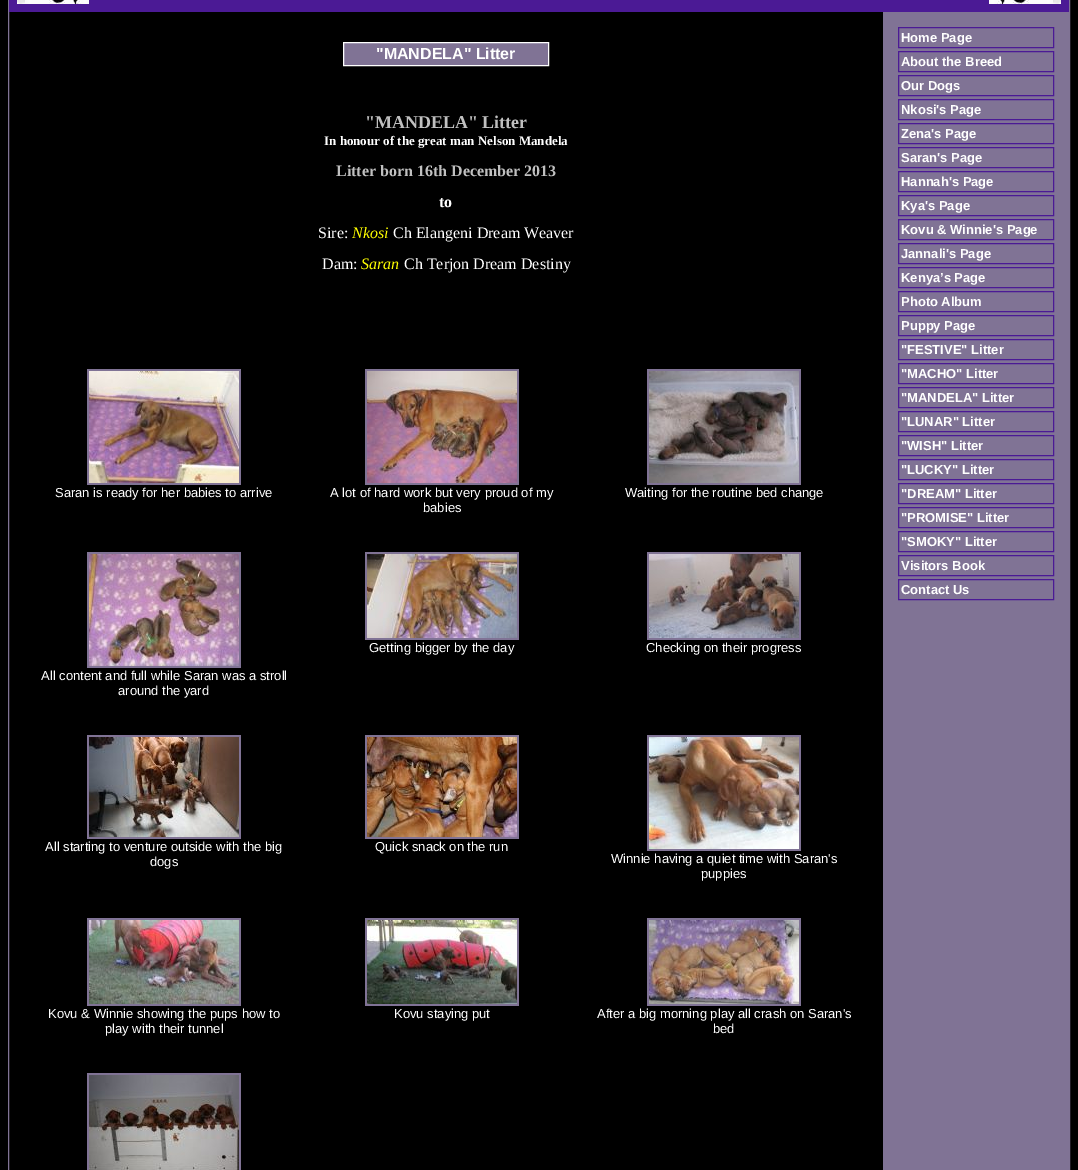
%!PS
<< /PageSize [1078 1170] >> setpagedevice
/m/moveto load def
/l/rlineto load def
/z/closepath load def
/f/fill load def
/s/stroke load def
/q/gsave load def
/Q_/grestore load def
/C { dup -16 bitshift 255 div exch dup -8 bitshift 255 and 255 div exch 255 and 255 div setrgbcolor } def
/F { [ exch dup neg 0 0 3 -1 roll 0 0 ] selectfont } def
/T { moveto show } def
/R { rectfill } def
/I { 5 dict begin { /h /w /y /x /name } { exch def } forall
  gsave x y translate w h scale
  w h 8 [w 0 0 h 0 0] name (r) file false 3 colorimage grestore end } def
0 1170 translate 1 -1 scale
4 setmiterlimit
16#000000 C
0 0 1078 1170 R
16#807395 C
8.5 -.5 1061 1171 rectstroke
16#4B1A95 C
9 0 1060 12 R
(1.rgb) 17 0 72 4 I
(2.rgb) 989 0 72 4 I
16#807395 C
343.5 42.5 m 205 0 l 0 23 l -205 0 l z q f Q_
16#FFFFFF C
s
/LiberationSans-Bold 16 F
("MANDELA" Litter) 376 59 T
/LiberationSerif-Bold 18 F
16#C0C0C0 C
("MANDELA" Litter) 365 128 T
/LiberationSerif-Bold 13 F
16#FFFFFF C
(In honour of the great man Nelson Mandela) 324 145 T
/LiberationSerif-Bold 16 F
16#C0C0C0 C
(Litter born 16th December 2013) 336 176 T
16#FFFFFF C
(to) 439 207 T
/LiberationSerif-Regular 16 F
(Sire:) 318 238 T
/LiberationSerif-Italic 16 F
16#FFFF00 C
(Nkosi) 352 238 T
/LiberationSerif-Regular 16 F
16#FFFFFF C
(Ch Elangeni Dream Weaver) 393 238 T
(Dam:) 322 269 T
/LiberationSerif-Italic 16 F
16#FFFF00 C
(Saran) 361 269 T
/LiberationSerif-Regular 16 F
16#FFFFFF C
(Ch Terjon Dream Destiny) 404 269 T
16#807395 C
87 369 154 116 R
(3.rgb) 89 371 150 112 I
/LiberationSans-Regular 13 F
16#FFFFFF C
(Saran is ready for her babies to arrive) 55 497 T
16#807395 C
365 369 154 116 R
(4.rgb) 367 371 150 112 I
16#FFFFFF C
(A lot of hard work but very proud of my) 330 497 T
(babies) 423 512 T
16#807395 C
647 369 154 116 R
(5.rgb) 649 371 150 112 I
16#FFFFFF C
(Waiting for the routine bed change) 625 497 T
16#807395 C
365 552 154 88 R
(6.rgb) 367 554 150 84 I
16#FFFFFF C
(Getting bigger by the day) 369 652 T
16#807395 C
647 552 154 88 R
(7.rgb) 649 554 150 84 I
16#FFFFFF C
(Checking on their progress) 646 652 T
16#807395 C
87 552 154 116 R
(8.rgb) 89 554 150 112 I
16#FFFFFF C
(All content and full while Saran was a stroll) 41 680 T
(around the yard) 118 695 T
16#807395 C
87 735 154 104 R
(9.rgb) 89 737 150 100 I
16#FFFFFF C
(All starting to venture outside with the big) 45 851 T
(dogs) 150 866 T
16#807395 C
365 735 154 104 R
(10.rgb) 367 737 150 100 I
16#FFFFFF C
(Quick snack on the run) 375 851 T
16#807395 C
647 735 154 116 R
(11.rgb) 649 737 150 112 I
16#FFFFFF C
(Winnie having a quiet time with Saran's) 611 863 T
(puppies) 701 878 T
16#807395 C
87 918 154 88 R
(12.rgb) 89 920 150 84 I
16#FFFFFF C
(Kovu & Winnie showing the pups how to) 48 1018 T
(play with their tunnel) 105 1033 T
16#807395 C
365 918 154 88 R
(13.rgb) 367 920 150 84 I
16#FFFFFF C
(Kovu staying put) 394 1018 T
16#807395 C
647 918 154 88 R
(14.rgb) 649 920 150 84 I
16#FFFFFF C
(After a big morning play all crash on Saran's) 597 1018 T
(bed) 713 1033 T
16#807395 C
87 1073 154 97 R
(15.rgb) 89 1075 150 95 I
883 12 186 1158 R
16#4B1A95 C
898.5 27.5 155 20 rectstroke
/LiberationSans-Bold 13 F
16#FFFFFF C
(Home Page) 901 42 T
16#4B1A95 C
898.5 51.5 155 20 rectstroke
16#FFFFFF C
(About the Breed) 901 66 T
16#4B1A95 C
898.5 75.5 155 20 rectstroke
16#FFFFFF C
(Our Dogs) 901 90 T
16#4B1A95 C
898.5 99.5 155 20 rectstroke
16#FFFFFF C
(Nkosi's Page) 901 114 T
16#4B1A95 C
898.5 123.5 155 20 rectstroke
16#FFFFFF C
(Zena's Page) 901 138 T
16#4B1A95 C
898.5 147.5 155 20 rectstroke
16#FFFFFF C
(Saran's Page) 901 162 T
16#4B1A95 C
898.5 171.5 155 20 rectstroke
16#FFFFFF C
(Hannah's Page) 901 186 T
16#4B1A95 C
898.5 195.5 155 20 rectstroke
16#FFFFFF C
(Kya's Page) 901 210 T
16#4B1A95 C
898.5 219.5 155 20 rectstroke
16#FFFFFF C
(Kovu & Winnie's Page) 901 234 T
16#4B1A95 C
898.5 243.5 155 20 rectstroke
16#FFFFFF C
(Jannali's Page) 901 258 T
16#4B1A95 C
898.5 267.5 155 20 rectstroke
16#FFFFFF C
(Kenya’s Page) 901 282 T
16#4B1A95 C
898.5 291.5 155 20 rectstroke
16#FFFFFF C
(Photo Album) 901 306 T
16#4B1A95 C
898.5 315.5 155 20 rectstroke
16#FFFFFF C
(Puppy Page) 901 330 T
16#4B1A95 C
898.5 339.5 155 20 rectstroke
16#FFFFFF C
("FESTIVE" Litter) 901 354 T
16#4B1A95 C
898.5 363.5 155 20 rectstroke
16#FFFFFF C
("MACHO" Litter) 901 378 T
16#4B1A95 C
898.5 387.5 155 20 rectstroke
16#FFFFFF C
("MANDELA" Litter) 901 402 T
16#4B1A95 C
898.5 411.5 155 20 rectstroke
16#FFFFFF C
("LUNAR" Litter) 901 426 T
16#4B1A95 C
898.5 435.5 155 20 rectstroke
16#FFFFFF C
("WISH" Litter) 901 450 T
16#4B1A95 C
898.5 459.5 155 20 rectstroke
16#FFFFFF C
("LUCKY" Litter) 901 474 T
16#4B1A95 C
898.5 483.5 155 20 rectstroke
16#FFFFFF C
("DREAM" Litter) 901 498 T
16#4B1A95 C
898.5 507.5 155 20 rectstroke
16#FFFFFF C
("PROMISE" Litter) 901 522 T
16#4B1A95 C
898.5 531.5 155 20 rectstroke
16#FFFFFF C
("SMOKY" Litter) 901 546 T
16#4B1A95 C
898.5 555.5 155 20 rectstroke
16#FFFFFF C
(Visitors Book) 901 570 T
16#4B1A95 C
898.5 579.5 155 20 rectstroke
16#FFFFFF C
(Contact Us) 901 594 T
showpage
